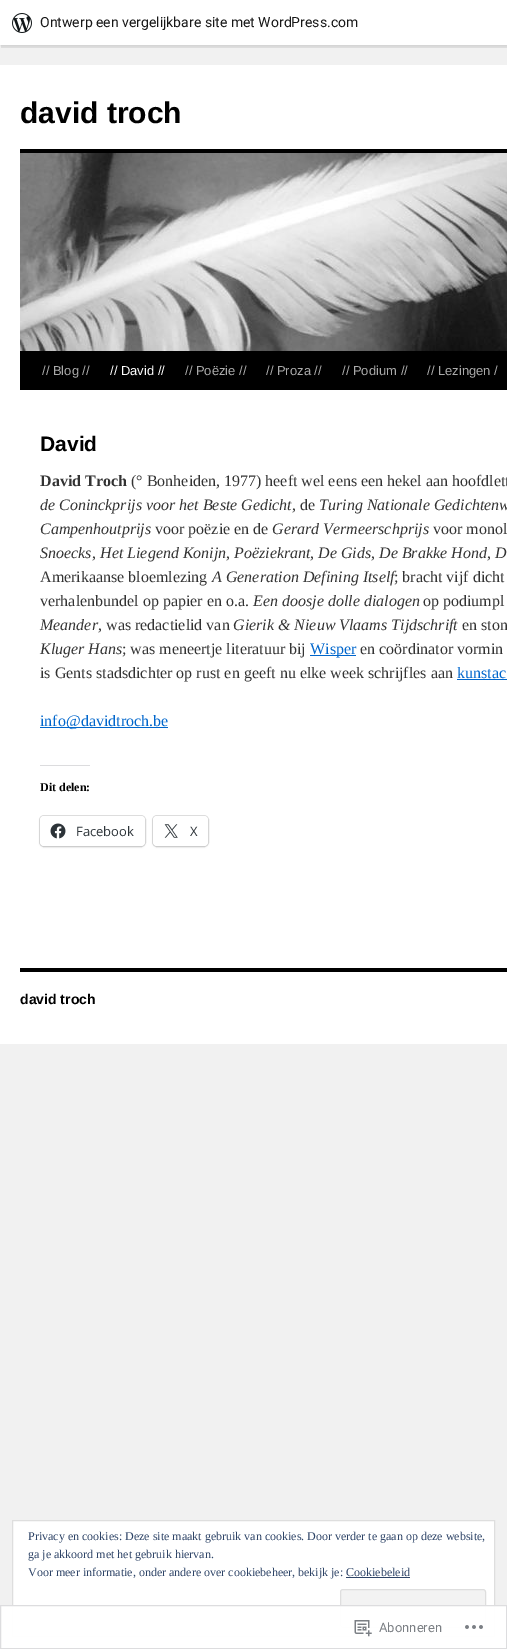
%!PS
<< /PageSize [507 1649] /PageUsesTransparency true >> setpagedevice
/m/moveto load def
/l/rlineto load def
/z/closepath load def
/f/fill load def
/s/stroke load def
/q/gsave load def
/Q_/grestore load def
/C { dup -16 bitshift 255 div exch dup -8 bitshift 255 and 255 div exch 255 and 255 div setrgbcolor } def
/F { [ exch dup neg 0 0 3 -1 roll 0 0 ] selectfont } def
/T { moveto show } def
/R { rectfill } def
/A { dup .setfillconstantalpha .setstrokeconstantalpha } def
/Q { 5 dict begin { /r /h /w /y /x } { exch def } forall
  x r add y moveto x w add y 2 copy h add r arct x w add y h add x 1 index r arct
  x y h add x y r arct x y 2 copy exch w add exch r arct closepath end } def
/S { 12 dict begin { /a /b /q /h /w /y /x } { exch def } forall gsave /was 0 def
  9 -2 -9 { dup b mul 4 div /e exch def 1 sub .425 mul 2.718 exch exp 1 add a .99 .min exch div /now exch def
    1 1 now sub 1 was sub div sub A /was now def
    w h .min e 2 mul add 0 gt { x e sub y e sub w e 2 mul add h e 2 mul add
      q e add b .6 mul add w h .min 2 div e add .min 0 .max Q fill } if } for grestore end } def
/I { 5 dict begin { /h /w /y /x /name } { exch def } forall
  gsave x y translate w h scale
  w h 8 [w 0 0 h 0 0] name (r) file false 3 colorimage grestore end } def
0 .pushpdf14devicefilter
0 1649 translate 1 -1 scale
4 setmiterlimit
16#F1F1F1 C
0 0 507 1649 R
16#000000 C
0 1 507 45 0 1 .05 S
0.08 A
1 45 m 0 3 l 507 0 l 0 -45 l -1 0 l 0 42 l z f
1 A
16#FFFFFF C
0 0 507 45 R
(1.rgb) 12 13 20 20 I
/Roboto-Regular 14 F
16#171717 C
(Ontwerp een vergelijkbare site met WordPress.com) 40 27 T
16#FFFFFF C
0 65 507 979 R
/LiberationSans-Bold 30 F
16#000000 C
(david troch) 20 123 T
20 149 487 4 R
20 351 487 39 R
(2.rgb) 20 153 487 198 I
/LiberationSans-Regular 13 F
16#AAAAAA C
(// Blog //) 42 375 T
16#FFFFFF C
(// David //) 110 375 T
16#AAAAAA C
(// Poëzie //) 185 375 T
(// Proza //) 266 375 T
(// Podium //) 342 375 T
(// Lezingen /) 427 375 T
/LiberationSans-Bold 21 F
16#000000 C
(David) 40 451 T
/LiberationSerif-Bold 16 F
16#333333 C
(David Troch) 40 486 T
/LiberationSerif-Regular 16 F
(\(° Bonheiden, 1977\) heeft wel eens een hekel aan hoofdlett) 131 486 T
/LiberationSerif-Italic 16 F
(de Coninckprijs voor het Beste Gedicht) 40 510 T
/LiberationSerif-Regular 16 F
(, de) 292 510 T
/LiberationSerif-Italic 16 F
(Turing Nationale Gedichtenw) 319 510 T
(Campenhoutprijs) 40 534 T
/LiberationSerif-Regular 16 F
(voor poëzie en de) 155 534 T
/LiberationSerif-Italic 16 F
(Gerard Vermeerschprijs) 272 534 T
/LiberationSerif-Regular 16 F
(voor monol) 433 534 T
/LiberationSerif-Italic 16 F
(Snoecks) 40 558 T
(Het Liegend Konijn) 100 558 T
(Poëziekrant) 234 558 T
(De Gids) 318 558 T
(De Brakke Hond) 379 558 T
(D) 495 558 T
/LiberationSerif-Regular 16 F
(,) 92 558 T
(,) 226 558 T
(,) 310 558 T
(,) 371 558 T
(,) 487 558 T
(Amerikaanse bloemlezing) 40 582 T
/LiberationSerif-Italic 16 F
(A Generation Defining Itself) 212 582 T
/LiberationSerif-Regular 16 F
(; bracht vijf dicht) 394 582 T
(verhalenbundel op papier en o.a.) 40 606 T
/LiberationSerif-Italic 16 F
(Een doosje dolle dialogen) 253 606 T
/LiberationSerif-Regular 16 F
(op podiumpl) 423 606 T
/LiberationSerif-Italic 16 F
(Meander) 40 630 T
/LiberationSerif-Regular 16 F
(, was redactielid van) 98 630 T
/LiberationSerif-Italic 16 F
(Gierik & Nieuw Vlaams Tijdschrift) 233 630 T
/LiberationSerif-Regular 16 F
(en ston) 462 630 T
/LiberationSerif-Italic 16 F
(Kluger Hans) 40 654 T
/LiberationSerif-Regular 16 F
(; was meneertje literatuur bij) 122 654 T
16#0066CC C
310 655 46 1 R
(Wisper) 310 654 T
16#333333 C
(en coördinator vormin) 360 654 T
(is Gents stadsdichter op rust en geeft nu elke week schrijfles aan) 40 678 T
16#0066CC C
(kunstac) 457 678 T
457 679 50 1 R
40 727 128 1 R
(info@davidtroch.be) 40 726 T
16#DCDCDE C
40 765 50 1 R
/LiberationSerif-Bold 12 F
16#000000 C
(Dit delen:) 40 791 T
16#E0E0E0 C
39.5 815.5 106 31 4.5 Q s
16#000000 C
40 817 105 30 4 1 .12 S
16#FFFFFF C
40 816 105 30 4 Q f
(3.rgb) 50 823 16 16 I
/OpenSans-Regular 13 F
16#2C3338 C
(Facebook) 76 836 T
16#E0E0E0 C
152.5 815.5 56 31 4.5 Q s
16#000000 C
153 817 55 30 4 1 .12 S
16#FFFFFF C
153 816 55 30 4 Q f
(4.rgb) 164 824 14 14 I
16#2C3338 C
(X) 190 836 T
16#000000 C
20 968 487 4 R
/LiberationSans-Bold 14 F
(david troch) 20 1004 T
16#FFFFFF C
12.5 1520.5 m 482 0 l 0 116 l -482 0 l z q f Q_
16#DEDEDE C
s
/LiberationSerif-Regular 12 F
16#2E4467 C
(Privacy en cookies: Deze site maakt gebruik van cookies. Door verder te gaan op deze website,) 28 1540 T
(ga je akkoord met het gebruik hiervan.) 28 1558 T
(Voor meer informatie, onder andere over cookiebeheer, bekijk je: Cookiebeleid) 28 1576 T
346 1577 64 1 R
16#F3F3F3 C
340.5 1589.5 145 38 2.5 Q q f Q_
16#DEDEDE C
s
0.98 A
16#FFFFFF C
0 1605 507 44 R
16#DCDCDE C
.5 1605.5 506 43 rectstroke
1 A
(5.rgb) 354 1620 18 17 I
/Roboto-Regular 13 F
16#7B7F84 C
(Abonneren) 379 1632 T
(6.rgb) 465 1625 18 4 I
.poppdf14devicefilter showpage
